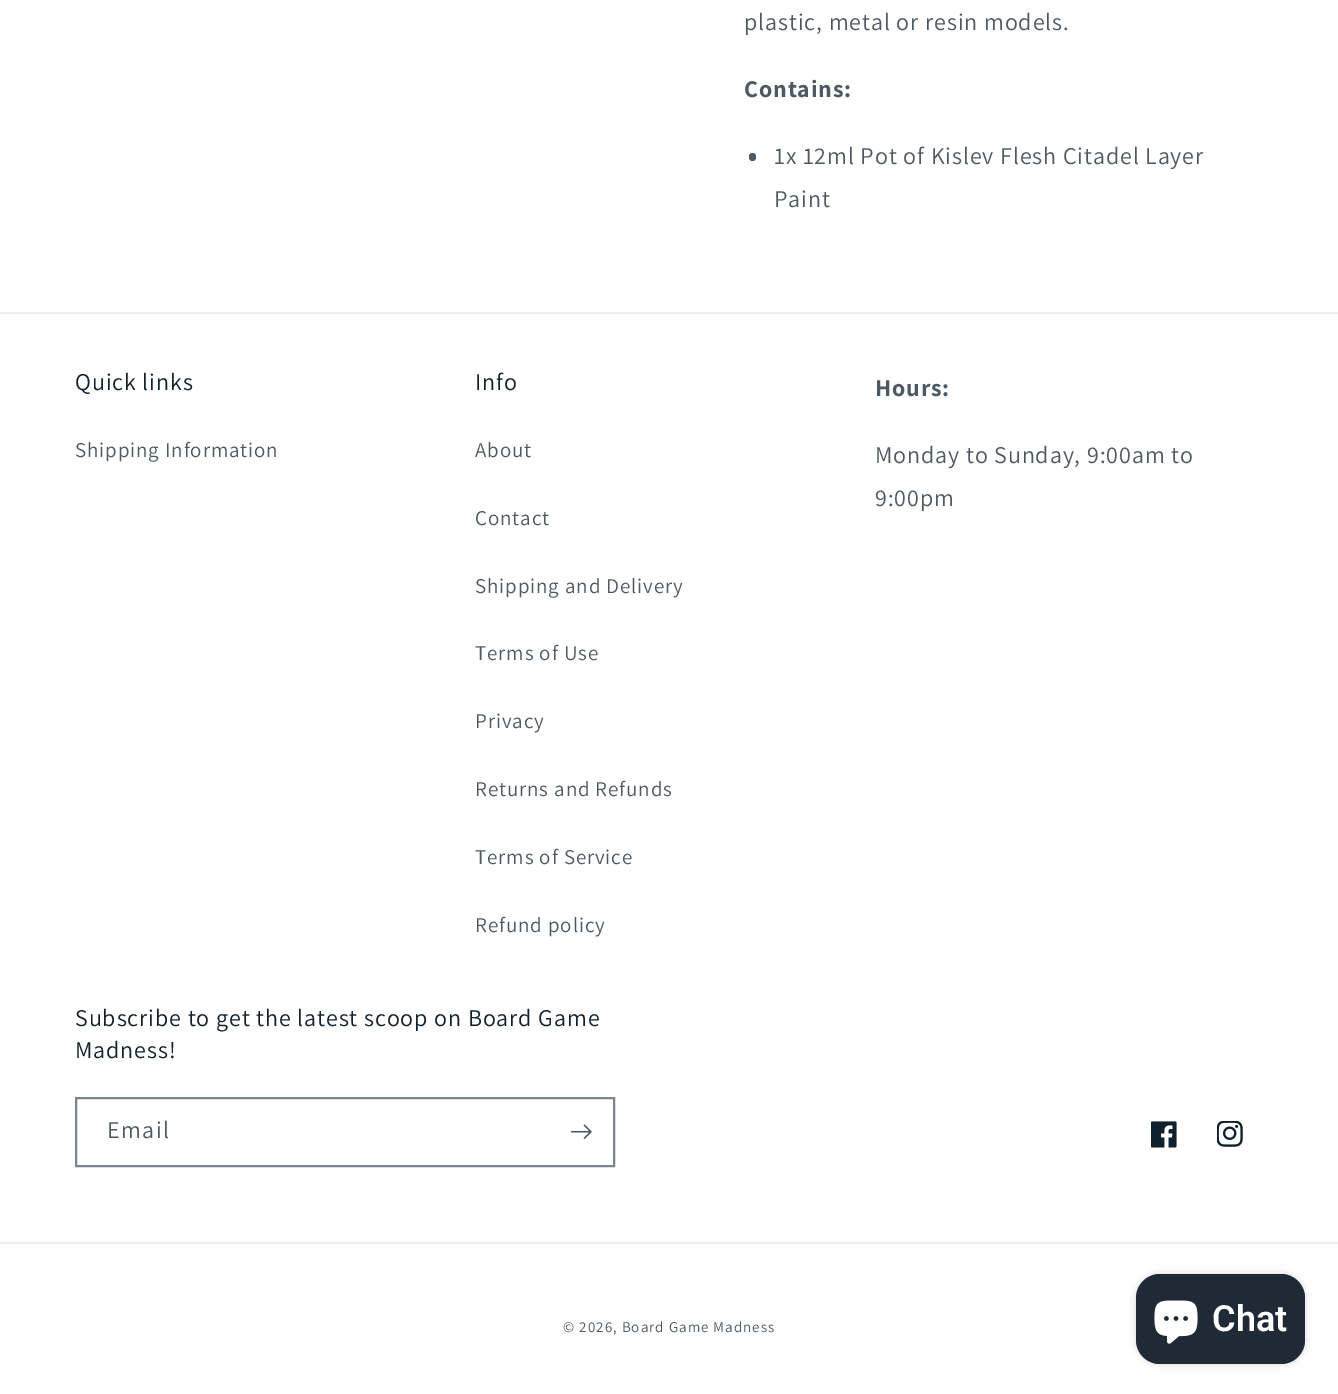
%!PS
<< /PageSize [1338 1394] /PageUsesTransparency true >> setpagedevice
/m/moveto load def
/f/fill load def
/w/setlinewidth load def
/C { dup -16 bitshift 255 div exch dup -8 bitshift 255 and 255 div exch 255 and 255 div setrgbcolor } def
/F { [ exch dup neg 0 0 3 -1 roll 0 0 ] selectfont } def
/T { moveto show } def
/R { rectfill } def
/A { dup .setfillconstantalpha .setstrokeconstantalpha } def
/Q { 5 dict begin { /r /h /w /y /x } { exch def } forall
  x r add y moveto x w add y 2 copy h add r arct x w add y h add x 1 index r arct
  x y h add x y r arct x y 2 copy exch w add exch r arct closepath end } def
/S { 12 dict begin { /a /b /q /h /w /y /x } { exch def } forall gsave /was 0 def
  9 -2 -9 { dup b mul 4 div /e exch def 1 sub .425 mul 2.718 exch exp 1 add a .99 .min exch div /now exch def
    1 1 now sub 1 was sub div sub A /was now def
    w h .min e 2 mul add 0 gt { x e sub y e sub w e 2 mul add h e 2 mul add
      q e add b .6 mul add w h .min 2 div e add .min 0 .max Q fill } if } for grestore end } def
/I { 5 dict begin { /h /w /y /x /name } { exch def } forall
  gsave x y translate w h scale
  w h 8 [w 0 0 h 0 0] name (r) file false 3 colorimage grestore end } def
0 .pushpdf14devicefilter
0 1394 translate 1 -1 scale
4 setmiterlimit
16#FFFFFF C
0 0 1338 1394 R
/Assistant-Regular 24 F
16#4C5862 C
744 30 m .9 0 (plastic, metal or resin models.) ashow
/Assistant-Bold 24 F
744 97 m .9 0 (Contains:) ashow
749 153 7 8 3.5 Q f
/Assistant-Regular 24 F
774 164 m .9 0 (1x 12ml Pot of Kislev Flesh Citadel Layer) ashow
774 207 m .9 0 (Paint) ashow
16#ECEDEE C
0 312 1338 2 R
16#10202D C
75 390 m .9 0 (Quick links) ashow
/Assistant-Regular 21 F
16#4C5862 C
75 457 m .9 0 (Shipping Information) ashow
/Assistant-Regular 24 F
16#10202D C
475 390 m .9 0 (Info) ashow
/Assistant-Regular 21 F
16#4C5862 C
475 457 m .9 0 (About) ashow
475 525 m .9 0 (Contact) ashow
475 593 m .9 0 (Shipping and Delivery) ashow
475 660 m .9 0 (Terms of Use) ashow
475 728 m .9 0 (Privacy) ashow
475 796 m .9 0 (Returns and Refunds) ashow
475 864 m .9 0 (Terms of Service) ashow
475 932 m .9 0 (Refund policy) ashow
/Assistant-Bold 24 F
875 396 m .9 0 (Hours:) ashow
/Assistant-Regular 24 F
875 463 m .9 0 (Monday to Sunday, 9:00am to) ashow
875 506 m .9 0 (9:00pm) ashow
16#10202D C
75 1026 m .9 0 (Subscribe to get the latest scoop on Board Game) ashow
75 1058 m .9 0 (Madness!) ashow
16#7C848C C
2 w
76 1098 538 68 rectstroke
16#4C5862 C
107 1138 m 1.5 0 (Email) ashow
(1.rgb) 570 1124 22 15 I
(2.rgb) 1151 1121 26 27 I
(3.rgb) 1217 1121 26 26 I
16#ECEDEE C
0 1242 1338 2 R
/Assistant-Regular 15 F
16#4C5862 C
563 1332 m 1.05 0 (© 2026, Board Game Madness) ashow
16#000000 C
1136 1274 169 90 24 4 .15 S
16#202A36 C
1136 1274 169 90 24 Q f
(4.rgb) 1154 1300 44 44 I
/Roboto-SemiBold 36 F
16#FFFFFF C
(Chat) 1212 1331 T
.poppdf14devicefilter showpage
